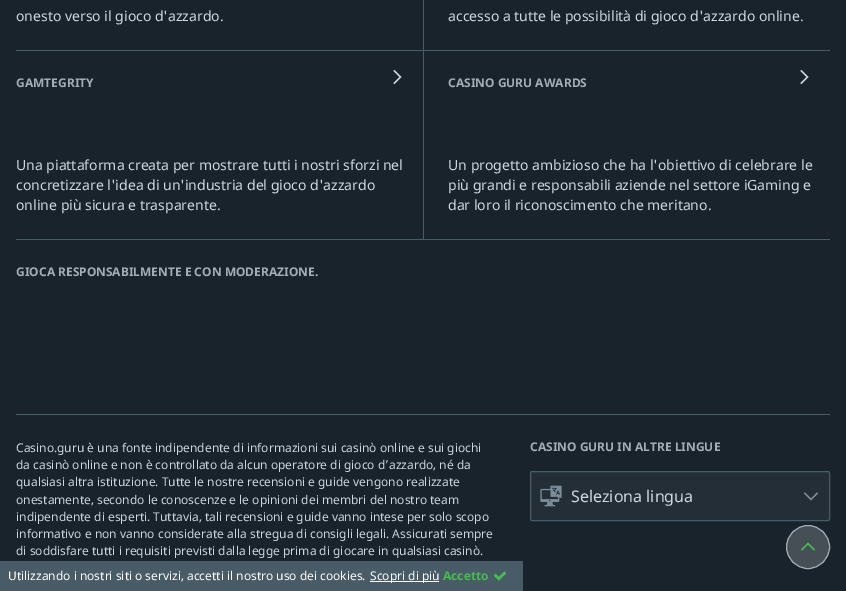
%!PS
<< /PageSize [846 591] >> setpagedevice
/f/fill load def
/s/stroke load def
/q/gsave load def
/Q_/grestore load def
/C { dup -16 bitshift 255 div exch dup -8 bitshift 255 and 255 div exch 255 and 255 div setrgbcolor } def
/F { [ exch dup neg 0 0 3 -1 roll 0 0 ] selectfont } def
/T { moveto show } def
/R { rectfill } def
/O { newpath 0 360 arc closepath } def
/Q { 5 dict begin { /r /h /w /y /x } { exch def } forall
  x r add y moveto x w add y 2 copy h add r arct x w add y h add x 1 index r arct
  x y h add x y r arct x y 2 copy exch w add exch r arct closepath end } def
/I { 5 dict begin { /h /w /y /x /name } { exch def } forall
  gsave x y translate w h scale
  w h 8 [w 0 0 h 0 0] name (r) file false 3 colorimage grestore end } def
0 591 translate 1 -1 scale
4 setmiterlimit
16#19232C C
0 0 846 591 R
16#4A5B68 C
423 0 1 50 R
/NotoSans-Regular 14 F
16#CDD6DD C
(onesto verso il gioco d'azzardo.) 16 21 T
(accesso a tutte le possibilità di gioco d'azzardo online.) 448 21 T
16#4A5B68 C
16 50 814 1 R
423 50 1 189 R
/NotoSans-Bold 12 F
16#A2AEB7 C
(GAMTEGRITY) 16 87 T
(1.rgb) 393 69 9 16 I
/NotoSans-Regular 14 F
16#CDD6DD C
(Una piattaforma creata per mostrare tutti i nostri sforzi nel) 16 170 T
(concretizzare l'idea di un'industria del gioco d'azzardo) 16 190 T
(online più sicura e trasparente.) 16 210 T
/NotoSans-Bold 12 F
16#A2AEB7 C
(CASINO GURU AWARDS) 448 87 T
(1.rgb) 800 69 9 16 I
/NotoSans-Regular 14 F
16#CDD6DD C
(Un progetto ambizioso che ha l'obiettivo di celebrare le) 448 170 T
(più grandi e responsabili aziende nel settore iGaming e) 448 190 T
(dar loro il riconoscimento che meritano.) 448 210 T
16#4A5B68 C
16 239 814 1 R
/NotoSans-Bold 12 F
16#A2AEB7 C
(GIOCA RESPONSABILMENTE E CON MODERAZIONE.) 16 276 T
16#4A5B68 C
16 414 814 1 R
/NotoSans-Regular 12 F
16#CDD6DD C
(Casino.guru è una fonte indipendente di informazioni sui casinò online e sui giochi) 16 452 T
(da casinò online e non è controllato da alcun operatore di gioco d’azzardo, né da) 16 469 T
(qualsiasi altra istituzione. Tutte le nostre recensioni e guide vengono realizzate) 16 486 T
(onestamente, secondo le conoscenze e le opinioni dei membri del nostro team) 16 504 T
(indipendente di esperti. Tuttavia, tali recensioni e guide vanno intese per solo scopo) 16 521 T
(informativo e non vanno considerate alla stregua di consigli legali. Assicurati sempre) 16 538 T
(di soddisfare tutti i requisiti previsti dalla legge prima di giocare in qualsiasi casinò.) 16 555 T
/NotoSans-Bold 12 F
16#A2AEB7 C
(CASINO GURU IN ALTRE LINGUE) 530 451 T
16#232E37 C
530.5 471.5 299 49 1.5 Q q f Q_
16#4A5B68 C
s
(2.rgb) 540 485 22 22 I
/NotoSans-Regular 16 F
16#CDD6DD C
(Seleziona lingua) 571 502 T
(3.rgb) 803 492 16 9 I
16#474F56 C
808 547 21.5 O q f Q_
16#A2AEB7 C
s
(4.rgb) 800 542 16 9 I
16#4A5B68 C
0 561 523 30 R
/NotoSans-Regular 12 F
16#FFFFFF C
(Utilizzando i nostri siti o servizi, accetti il nostro uso dei cookies.) 8 580 T
370 581 69 1 R
(Scopri di più) 370 580 T
/NotoSans-Bold 12 F
16#44BE4C C
(Accetto) 443 580 T
(5.rgb) 493 571 14 10 I
showpage
